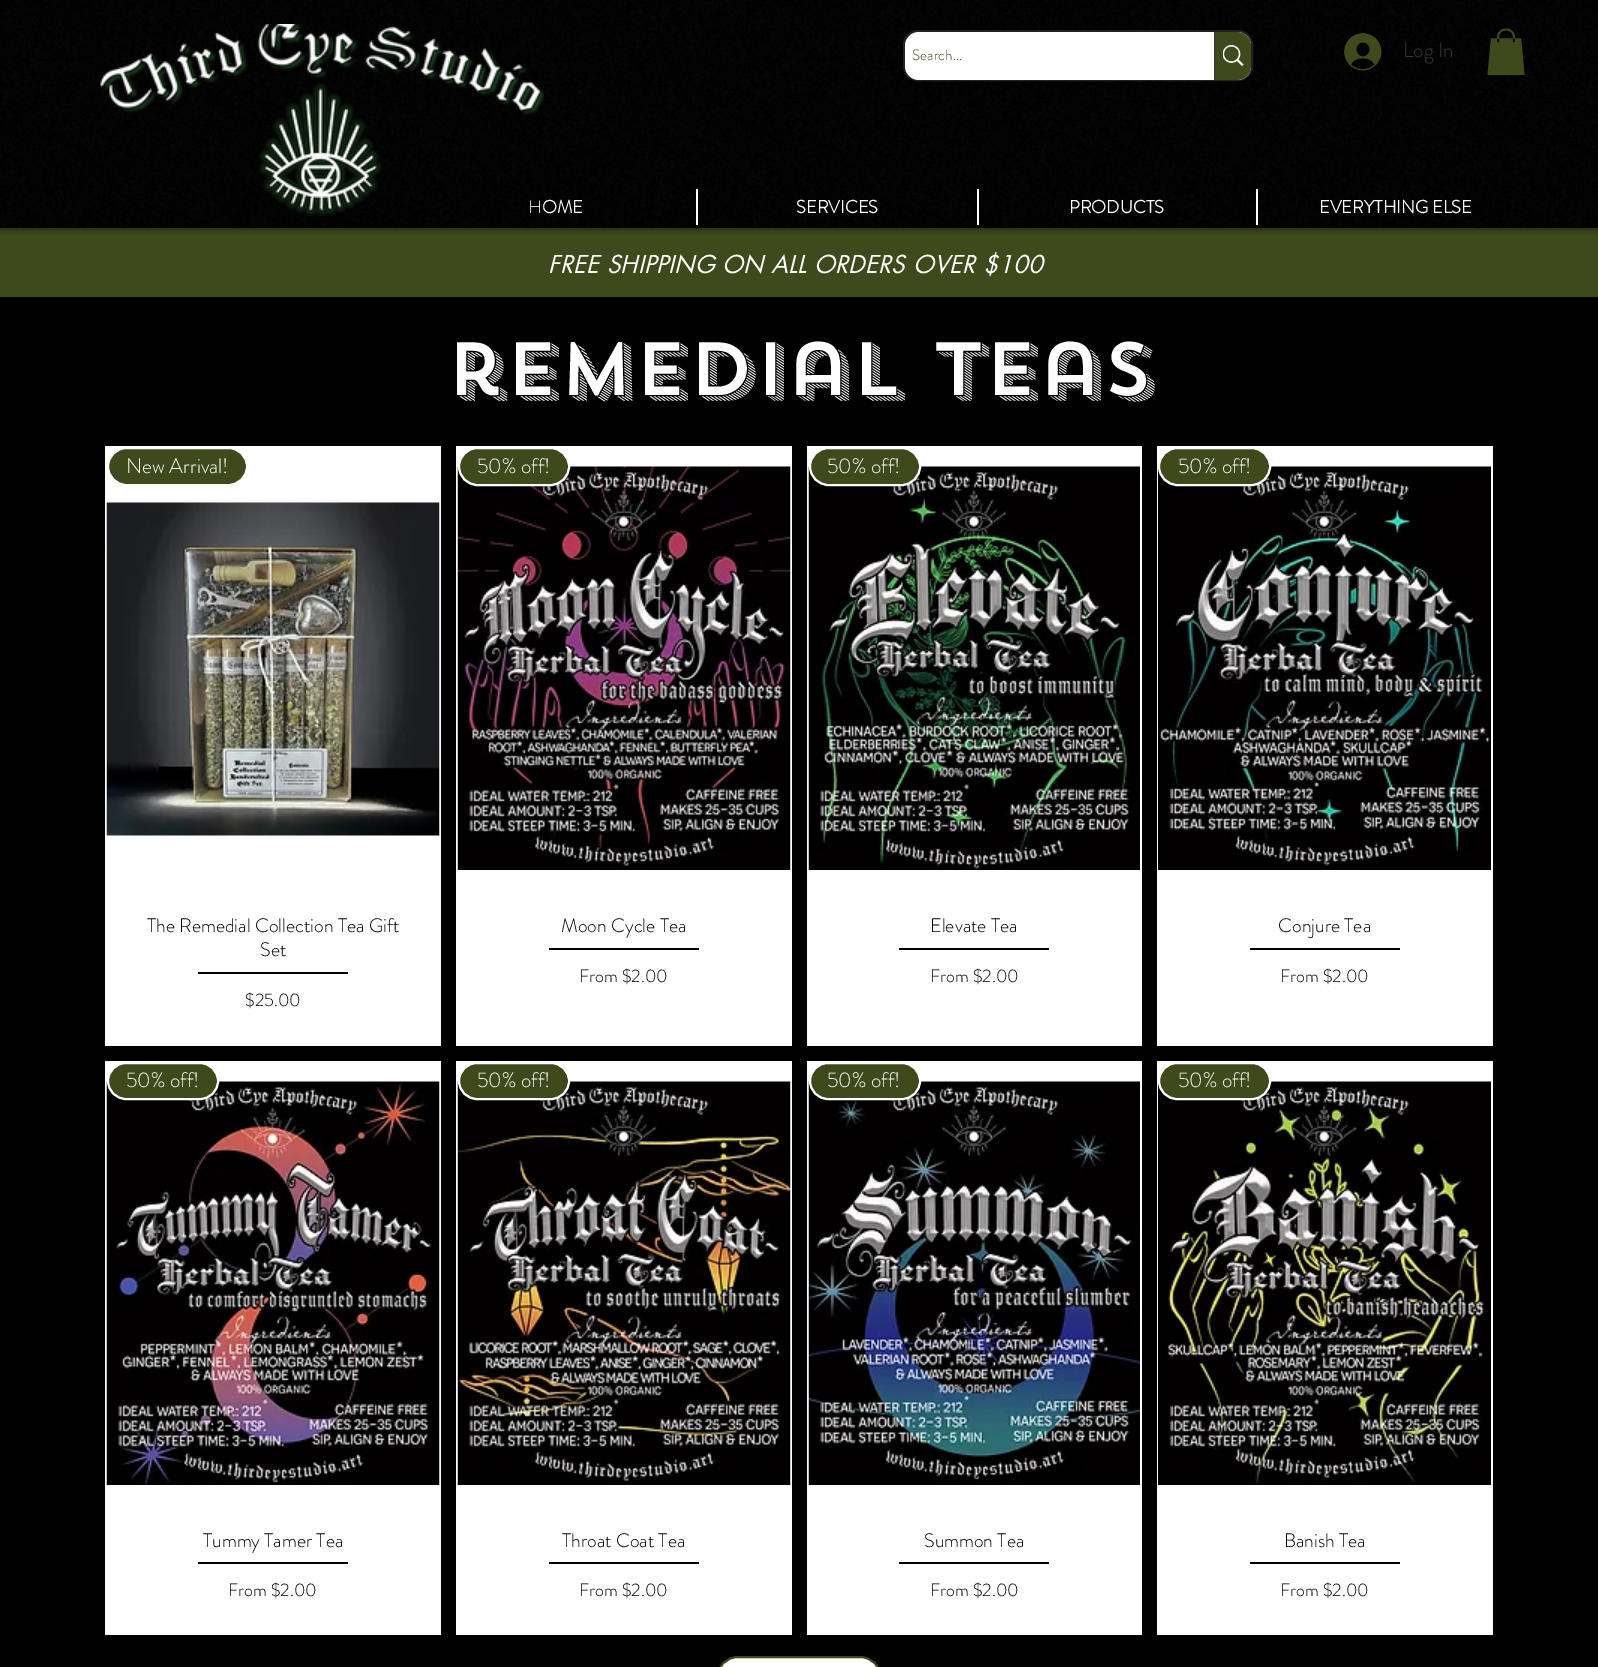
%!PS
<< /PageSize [1598 1667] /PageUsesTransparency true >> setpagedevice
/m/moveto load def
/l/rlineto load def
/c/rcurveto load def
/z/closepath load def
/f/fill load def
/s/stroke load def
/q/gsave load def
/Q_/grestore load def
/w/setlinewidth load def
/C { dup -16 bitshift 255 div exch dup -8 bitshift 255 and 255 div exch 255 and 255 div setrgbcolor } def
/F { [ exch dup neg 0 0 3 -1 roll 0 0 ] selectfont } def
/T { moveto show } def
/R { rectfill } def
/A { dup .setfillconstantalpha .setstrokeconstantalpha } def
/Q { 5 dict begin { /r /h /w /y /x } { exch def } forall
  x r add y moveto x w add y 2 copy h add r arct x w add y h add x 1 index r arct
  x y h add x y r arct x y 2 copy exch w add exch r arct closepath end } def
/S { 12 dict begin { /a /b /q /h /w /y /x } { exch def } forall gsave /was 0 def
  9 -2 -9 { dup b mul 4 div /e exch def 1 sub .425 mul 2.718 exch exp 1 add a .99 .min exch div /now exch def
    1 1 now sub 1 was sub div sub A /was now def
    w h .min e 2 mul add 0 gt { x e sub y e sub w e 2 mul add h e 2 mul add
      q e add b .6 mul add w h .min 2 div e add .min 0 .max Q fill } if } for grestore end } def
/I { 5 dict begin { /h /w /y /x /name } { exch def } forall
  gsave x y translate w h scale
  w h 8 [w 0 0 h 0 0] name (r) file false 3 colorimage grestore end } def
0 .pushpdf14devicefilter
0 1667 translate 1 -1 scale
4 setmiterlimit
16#000000 C
0 0 1598 1667 R
16#3E491C C
0 228 1598 69 R
q
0 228 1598 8 rectclip
16#000000 C
0 0 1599 228 0 4 .7 S
Q_
(1.rgb) 0 0 1598 228 I
/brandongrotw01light-Bold 18 F
16#FFFFFF C
(HOME) 528 213 T
(2.rgb) 100 24 444 192 I
0.6 A
16#363636 C
2 w
904 31 348 49 14 Q s
1 A
16#FFFFFF C
905 32 346 48 14 Q f
/brandongrotw01light-Light 15 F
16#3E491C C
(Search...) 912 60 T
1214 32 m 23 0 l 7.5 0 14 6.5 14 14 c 0 20 l 0 7.5 -6.5 14 -14 14 c -23 0 l z f
16#393E2C C
1214 32 2 48 R
(3.rgb) 1223 45 21 21 I
(4.rgb) 1344 33 38 38 I
/brandongrotw01light-Light 21 F
16#363636 C
(Log In) 1403 57 T
(5.rgb) 1487 28 38 48 I
16#FFFFFF C
696 189 2 36 R
/brandongrotw01light-Bold 18 F
(SERVICES) 796 213 T
977 189 2 36 R
(PRODUCTS) 1069 213 T
1256 189 2 36 R
(EVERYTHING ELSE) 1319 213 T
/futura-Italic 24 F
548 273 m .25 0 (FREE SHIPPING ON ALL ORDERS OVER $100) ashow
/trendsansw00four-Medium 75 F
(remedial teas) 446 395 T
105 446 336 600 R
16#3E491C C
108 448 139 37 18.5 Q q f Q_
16#FFFFFF C
s
/brandongrotw01light-Light 21 F
(New Arrival!) 126 473 T
(6.rgb) 106 502 334 334 I
/brandongrotw01light-Light 19.5 F
16#000000 C
(The Remedial Collection Tea Gift) 147 932 T
(Set) 260 956 T
198 972 150 2 R
/brandongrotw01light-Light 18 F
($25.00) 245 1006 T
16#FFFFFF C
456 446 336 600 R
(7.rgb) 457 466 334 404 I
16#3E491C C
459 448 110 37 18.5 Q q f Q_
16#FFFFFF C
s
/brandongrotw01light-Light 21 F
(50% off!) 477 473 T
/brandongrotw01light-Light 19.5 F
16#000000 C
(Moon Cycle Tea) 561 932 T
549 948 150 2 R
/brandongrotw01light-Light 18 F
(From $2.00) 579 982 T
16#FFFFFF C
807 446 335 600 R
(8.rgb) 808 466 332 404 I
16#3E491C C
810 448 110 37 18.5 Q q f Q_
16#FFFFFF C
s
/brandongrotw01light-Light 21 F
(50% off!) 827 473 T
/brandongrotw01light-Light 19.5 F
16#000000 C
(Elevate Tea) 930 932 T
899 948 150 2 R
/brandongrotw01light-Light 18 F
(From $2.00) 930 982 T
16#FFFFFF C
1157 446 336 600 R
(9.rgb) 1158 466 333 404 I
16#3E491C C
1159 448 111 37 18.5 Q q f Q_
16#FFFFFF C
s
/brandongrotw01light-Light 21 F
(50% off!) 1178 473 T
/brandongrotw01light-Light 19.5 F
16#000000 C
(Conjure Tea) 1278 932 T
1250 948 150 2 R
/brandongrotw01light-Light 18 F
(From $2.00) 1280 982 T
16#FFFFFF C
105 1061 336 574 R
(10.rgb) 106 1081 334 404 I
16#3E491C C
108 1063 110 36 18 Q q f Q_
16#FFFFFF C
s
/brandongrotw01light-Light 21 F
(50% off!) 126 1087 T
/brandongrotw01light-Light 19.5 F
16#000000 C
(Tummy Tamer Tea) 203 1547 T
198 1562 150 2 R
/brandongrotw01light-Light 18 F
(From $2.00) 228 1596 T
16#FFFFFF C
456 1061 336 574 R
(11.rgb) 457 1081 334 404 I
16#3E491C C
459 1063 110 36 18 Q q f Q_
16#FFFFFF C
s
/brandongrotw01light-Light 21 F
(50% off!) 477 1087 T
/brandongrotw01light-Light 19.5 F
16#000000 C
(Throat Coat Tea) 562 1547 T
549 1562 150 2 R
/brandongrotw01light-Light 18 F
(From $2.00) 579 1596 T
16#FFFFFF C
807 1061 335 574 R
(12.rgb) 808 1081 332 404 I
16#3E491C C
810 1063 110 36 18 Q q f Q_
16#FFFFFF C
s
/brandongrotw01light-Light 21 F
(50% off!) 827 1087 T
/brandongrotw01light-Light 19.5 F
16#000000 C
(Summon Tea) 924 1547 T
899 1562 150 2 R
/brandongrotw01light-Light 18 F
(From $2.00) 930 1596 T
16#FFFFFF C
1157 1061 336 574 R
(13.rgb) 1158 1081 333 404 I
16#3E491C C
1159 1063 111 36 18 Q q f Q_
16#FFFFFF C
s
/brandongrotw01light-Light 21 F
(50% off!) 1178 1087 T
/brandongrotw01light-Light 19.5 F
16#000000 C
(Banish Tea) 1284 1547 T
1250 1562 150 2 R
/brandongrotw01light-Light 18 F
(From $2.00) 1280 1596 T
16#FFFFFF C
717 1657 164 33 21 Q q f Q_
16#3E491C C
s
.poppdf14devicefilter showpage
